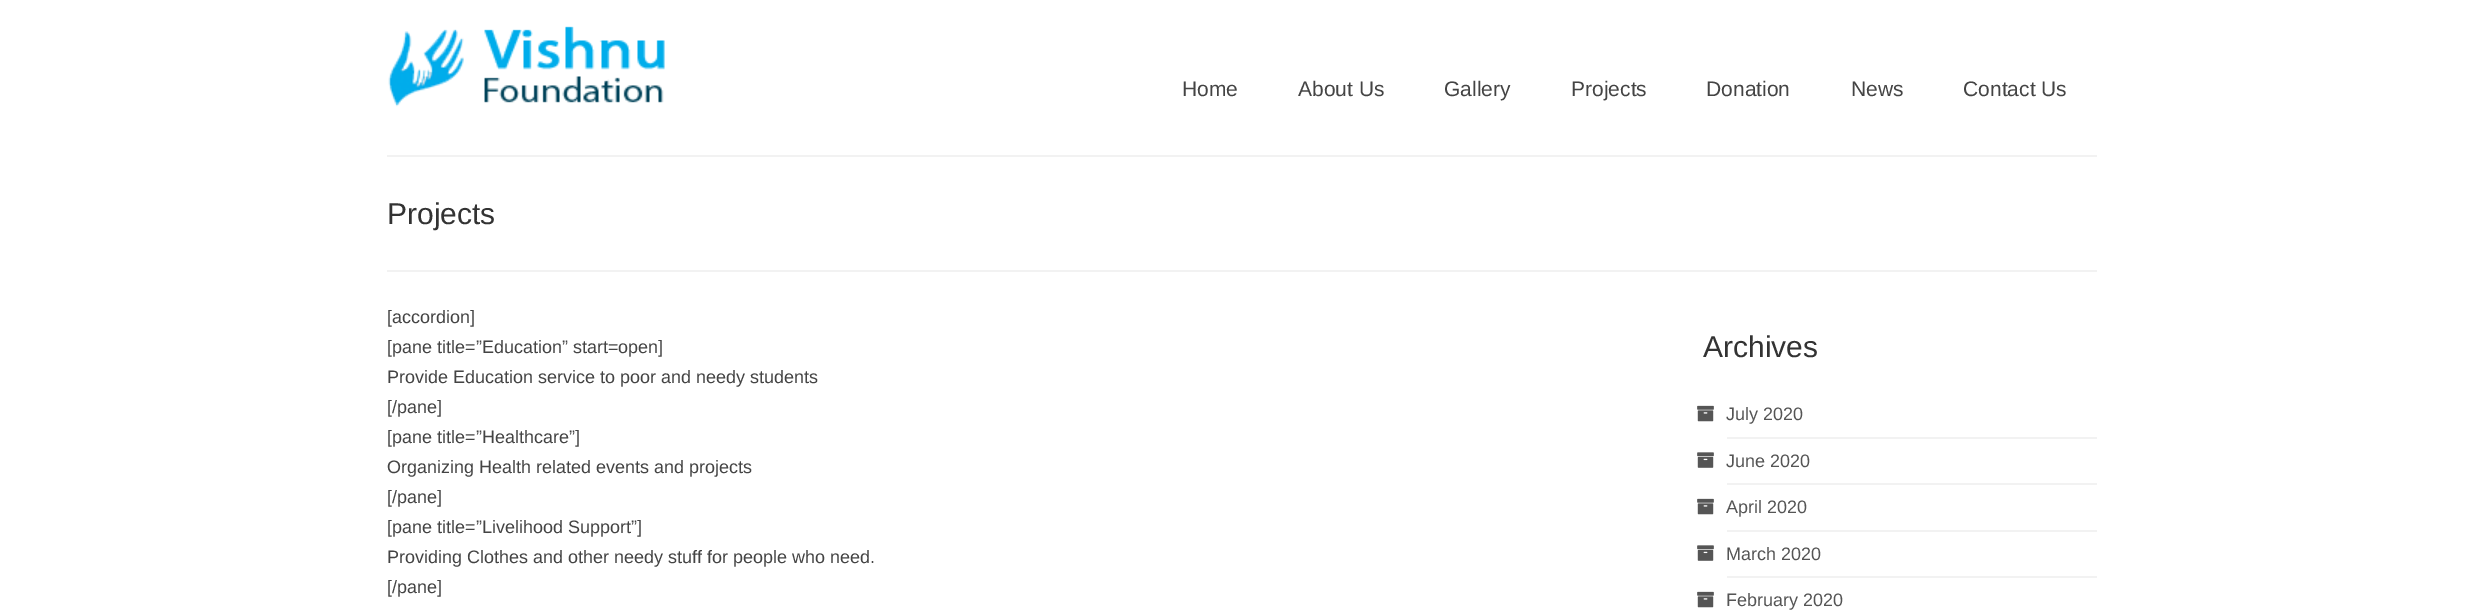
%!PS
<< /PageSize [2484 613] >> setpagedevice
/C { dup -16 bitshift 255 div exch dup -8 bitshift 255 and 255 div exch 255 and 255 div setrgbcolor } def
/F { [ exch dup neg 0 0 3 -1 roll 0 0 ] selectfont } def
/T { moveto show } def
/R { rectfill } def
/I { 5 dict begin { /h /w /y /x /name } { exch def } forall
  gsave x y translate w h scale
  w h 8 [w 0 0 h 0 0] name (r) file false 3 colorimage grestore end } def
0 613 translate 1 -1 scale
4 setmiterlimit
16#FFFFFF C
0 0 2484 613 R
(1.rgb) 388 26 277 81 I
/LiberationSans-Regular 21 F
16#444444 C
(Home) 1182 96 T
(About Us) 1298 96 T
(Gallery) 1444 96 T
(Projects) 1571 96 T
(Donation) 1706 96 T
(News) 1851 96 T
(Contact Us) 1963 96 T
16#F2F2F2 C
387 155 1710 2 R
387 270 1710 2 R
/LiberationSans-Regular 30 F
16#333333 C
(Projects) 387 224 T
/LiberationSans-Regular 18 F
16#444444 C
([accordion]) 387 323 T
([pane title=”Education” start=open]) 387 353 T
(Provide Education service to poor and needy students) 387 383 T
([/pane]) 387 413 T
([pane title=”Healthcare”]) 387 443 T
(Organizing Health related events and projects) 387 473 T
([/pane]) 387 503 T
([pane title=”Livelihood Support”]) 387 533 T
(Providing Clothes and other needy stuff for people who need.) 387 563 T
([/pane]) 387 593 T
/LiberationSans-Regular 30 F
16#333333 C
(Archives) 1703 357 T
16#F2F2F2 C
1727 437 370 2 R
(2.rgb) 1697 405 17 17 I
/LiberationSans-Regular 18 F
16#555555 C
(July 2020) 1726 420 T
16#F2F2F2 C
1727 483 370 2 R
(3.rgb) 1697 452 17 16 I
16#555555 C
(June 2020) 1726 467 T
16#F2F2F2 C
1727 530 370 2 R
(2.rgb) 1697 498 17 17 I
16#555555 C
(April 2020) 1726 513 T
16#F2F2F2 C
1727 576 370 2 R
(3.rgb) 1697 545 17 16 I
16#555555 C
(March 2020) 1726 560 T
(2.rgb) 1697 591 17 17 I
(February 2020) 1726 606 T
showpage
